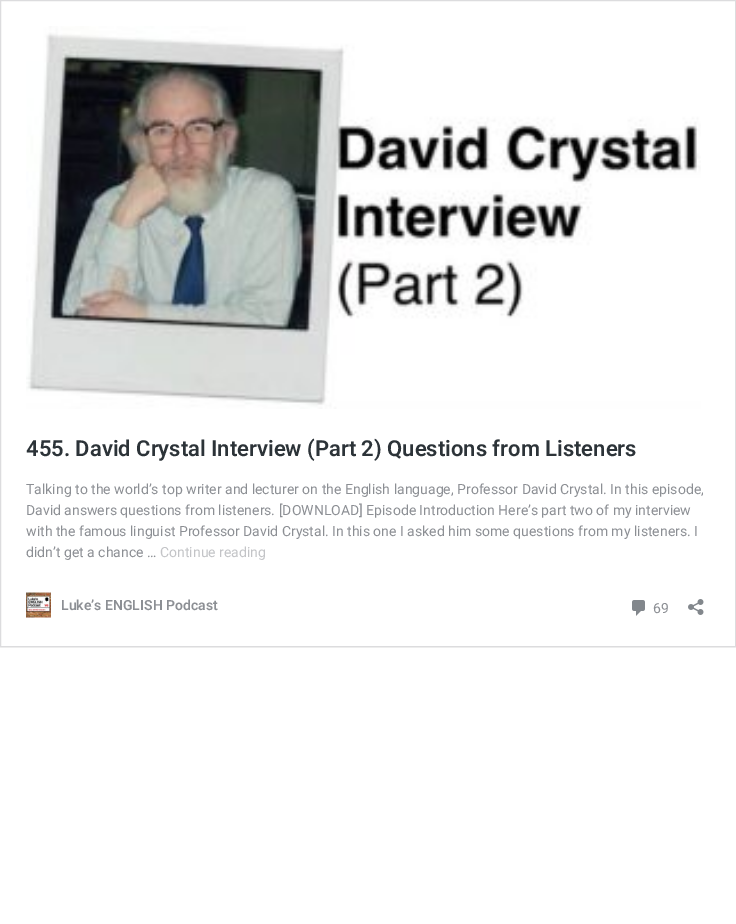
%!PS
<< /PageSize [736 924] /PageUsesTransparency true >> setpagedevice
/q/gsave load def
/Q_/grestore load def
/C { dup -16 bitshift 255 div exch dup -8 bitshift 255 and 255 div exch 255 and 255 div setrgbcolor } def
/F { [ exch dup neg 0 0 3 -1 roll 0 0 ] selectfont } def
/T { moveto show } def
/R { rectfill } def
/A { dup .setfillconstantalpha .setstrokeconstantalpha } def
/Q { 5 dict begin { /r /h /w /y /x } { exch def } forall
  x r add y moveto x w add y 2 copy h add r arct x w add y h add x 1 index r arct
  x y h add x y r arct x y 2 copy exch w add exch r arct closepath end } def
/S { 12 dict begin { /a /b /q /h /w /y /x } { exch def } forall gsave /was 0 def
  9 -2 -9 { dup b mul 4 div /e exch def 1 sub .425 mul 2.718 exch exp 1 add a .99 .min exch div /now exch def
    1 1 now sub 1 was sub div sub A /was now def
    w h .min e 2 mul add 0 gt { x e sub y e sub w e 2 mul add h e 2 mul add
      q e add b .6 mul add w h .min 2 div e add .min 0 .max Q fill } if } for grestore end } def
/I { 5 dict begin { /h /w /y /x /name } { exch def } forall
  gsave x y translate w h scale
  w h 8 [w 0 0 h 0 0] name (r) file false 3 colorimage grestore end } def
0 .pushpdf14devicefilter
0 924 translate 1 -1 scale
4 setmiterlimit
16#FFFFFF C
0 0 736 924 R
q
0 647 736 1 rectclip
16#000000 C
0 1 736 647 0 .5 .05 S
Q_
16#DCDCDE C
.5 .5 735 646 rectstroke
(1.rgb) 26 26 675 383 I
/Roboto-SemiBold 22 F
16#2C3338 C
(455. David Crystal Interview \(Part 2\) Questions from Listeners) 26 456 T
/Roboto-Regular 14 F
16#8C8F94 C
(Talking to the world’s top writer and lecturer on the English language, Professor David Crystal. In this episode,) 26 494 T
(David answers questions from listeners. [DOWNLOAD] Episode Introduction Here’s part two of my interview) 26 515 T
(with the famous linguist Professor David Crystal. In this one I asked him some questions from my listeners. I) 26 536 T
(didn’t get a chance …) 26 557 T
16#C3C4C7 C
(Continue reading) 160 557 T
(2.rgb) 26 592 25 26 I
/Roboto-SemiBold 14 F
16#8C8F94 C
(Luke’s ENGLISH Podcast) 61 610 T
(3.rgb) 632 600 13 16 I
/Roboto-Regular 14 F
(69) 653 613 T
(4.rgb) 688 599 16 16 I
.poppdf14devicefilter showpage
